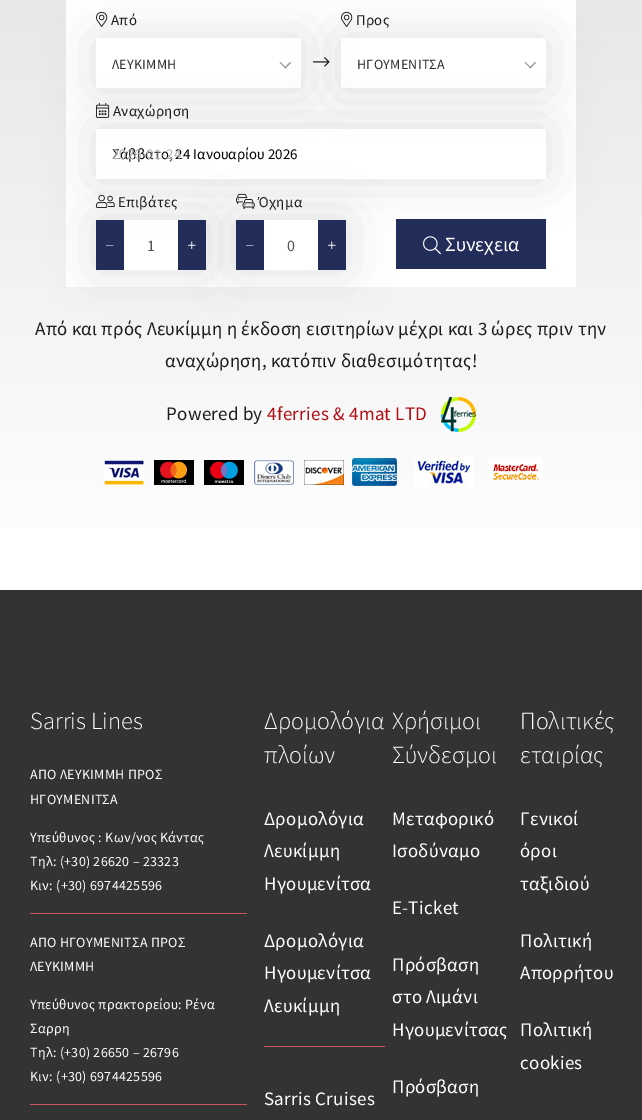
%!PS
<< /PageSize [642 1120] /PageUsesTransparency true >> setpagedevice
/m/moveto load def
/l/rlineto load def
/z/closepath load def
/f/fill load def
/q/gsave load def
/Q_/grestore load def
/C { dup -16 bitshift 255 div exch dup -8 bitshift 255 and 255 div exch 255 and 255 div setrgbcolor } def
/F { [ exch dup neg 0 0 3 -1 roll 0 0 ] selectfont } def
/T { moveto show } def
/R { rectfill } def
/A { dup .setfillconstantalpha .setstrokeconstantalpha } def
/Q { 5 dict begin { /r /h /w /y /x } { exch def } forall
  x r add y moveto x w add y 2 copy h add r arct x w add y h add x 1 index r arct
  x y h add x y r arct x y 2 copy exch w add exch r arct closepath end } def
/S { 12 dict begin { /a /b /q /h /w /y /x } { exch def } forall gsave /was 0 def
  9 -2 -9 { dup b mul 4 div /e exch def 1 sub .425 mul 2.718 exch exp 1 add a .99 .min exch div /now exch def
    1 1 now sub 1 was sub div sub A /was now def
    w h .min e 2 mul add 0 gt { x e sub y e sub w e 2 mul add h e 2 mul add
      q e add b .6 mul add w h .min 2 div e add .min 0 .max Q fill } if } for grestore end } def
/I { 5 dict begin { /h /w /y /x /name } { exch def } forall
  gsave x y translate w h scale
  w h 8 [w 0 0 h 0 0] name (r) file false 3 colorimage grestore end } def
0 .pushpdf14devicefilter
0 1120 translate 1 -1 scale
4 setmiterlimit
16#FFFFFF C
0 0 642 1120 R
q 0 0 m 642 0 l 0 527 l -642 0 l z clip newpath
<< /ShadingType 2 /ColorSpace /DeviceRGB /Coords [321 -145 321 590] /Extend [true true] /Function << /FunctionType 2 /Domain [0 1] /C0 [.886 .886 .886] /C1 [1 1 1] /N 1 >> >> shfill Q_
66 0 510 287 R
(1.rgb) 96 11 12 16 I
/SourceSansPro-Regular 15 F
16#1C1C1C C
111 25 m .28 0 (Από) ashow
(1.rgb) 341 11 12 16 I
q
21 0 m 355 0 l 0 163 l -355 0 l z 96 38 m 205 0 l 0 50 l -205 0 l z eoclip newpath
16#000000 C
96 38 205 50 0 24.5 .12 S
Q_
/SourceSansPro-Regular 14 F
16#2D2D2D C
112 69 m .28 0 (ΛΕΥΚΙΜΜΗ) ashow
16#999999 C
290 62 m 1 .5 l -5.5 6 l -1 -1 l z f
280.5 62 m 5.5 5.5 l -.5 1 l -6 -6 l z f
(2.rgb) 313 57 17 10 I
/SourceSansPro-Regular 15 F
16#1C1C1C C
356 25 m .28 0 (Προς) ashow
q
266 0 m 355 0 l 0 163 l -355 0 l z 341 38 m 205 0 l 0 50 l -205 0 l z eoclip newpath
16#000000 C
341 38 205 50 0 24.5 .12 S
Q_
/SourceSansPro-Regular 14 F
16#2D2D2D C
357 69 m .28 0 (ΗΓΟΥΜΕΝΙΤΣΑ) ashow
16#999999 C
535 62 m 1 .5 l -5.5 6 l -1 -1 l z f
525.5 62 m 5.5 5.5 l -.5 1 l -6 -6 l z f
(3.rgb) 96 102 14 16 I
/SourceSansPro-Regular 15 F
16#1C1C1C C
113 116 m .28 0 (Αναχώρηση) ashow
(4.rgb) 96 194 19 14 I
(6.rgb) 236 193 19 16 I
16#222D5A C
396 219 150 50 R
(7.rgb) 423 236 18 19 I
q
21 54 m 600 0 l 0 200 l -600 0 l z 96 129 m 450 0 l 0 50 l -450 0 l z eoclip newpath
16#000000 C
96 129 450 50 0 24.5 .12 S
Q_
16#000000 C
(Σάββατο, 24 Ιανουαρίου 2026) 112 159 T
q
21 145 m 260 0 l 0 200 l -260 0 l z 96 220 m 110 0 l 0 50 l -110 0 l z eoclip newpath
96 220 110 50 0 24.5 .12 S
Q_
16#222D5A C
178 220 28 50 R
(5.rgb) 188 241 8 8 I
16#000000 C
236 220 110 50 0 24.5 .12 S
16#B2B2B2 C
(2026-01-24) 112 159 T
16#1C1C1C C
118 207 m .28 0 (Επιβάτες) ashow
16#222D5A C
96 220 28 50 R
16#FFFFFF C
113.5 245 m 0 .5 l -7.5 0 l 0 -.5 l z f
/SourceSansPro-Regular 16 F
16#545454 C
(1) 147 251 T
/SourceSansPro-Regular 15 F
16#1C1C1C C
258 207 m .28 0 (Όχημα) ashow
16#FFFFFF C
264 220 54 50 R
16#222D5A C
236 220 28 50 R
16#FFFFFF C
253.5 245 m 0 .5 l -7.5 0 l 0 -.5 l z f
/SourceSansPro-Regular 16 F
16#545454 C
(0) 287 251 T
16#222D5A C
318 220 28 50 R
(5.rgb) 328 241 8 8 I
/SourceSansPro-Regular 20 F
16#FFFFFF C
(Συνεχεια) 445 251 T
/SourceSansPro-Regular 19 F
16#1C1C1C C
35 335 m .28 0 (Από και πρός Λευκίμμη η έκδοση εισιτηρίων μέχρι και 3 ώρες πριν την) ashow
165 367 m .28 0 (αναχώρηση, κατόπιν διαθεσιμότητας!) ashow
166 420 m .28 0 (Powered by) ashow
16#B11116 C
267 420 m .28 0 (4ferries & 4mat LTD) ashow
(8.rgb) 441 397 35 35 I
(9.rgb) 104 458 293 28 I
(10.rgb) 414 457 60 30 I
(11.rgb) 488 457 55 23 I
16#333333 C
0 590 642 530 R
/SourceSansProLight-Light 24.5 F
16#FFFFFF C
(Sarris Lines) 30 729 T
/SourceSansPro-Regular 14 F
30 779 m .28 0 (ΑΠΟ ΛΕΥΚΙΜΜΗ ΠΡΟΣ) ashow
30 804 m .28 0 (ΗΓΟΥΜΕΝΙΤΣΑ) ashow
30 842 m .28 0 (Υπεύθυνος : Κων/νος Κάντας) ashow
30 866 m .28 0 (Τηλ: \(+30\) 26620 – 23323) ashow
30 890 m .28 0 (Κιν: \(+30\) 6974425596) ashow
16#CB555D C
30 913 217 1 R
16#FFFFFF C
30 947 m .28 0 (ΑΠΟ ΗΓΟΥΜΕΝΙΤΣΑ ΠΡΟΣ) ashow
30 971 m .28 0 (ΛΕΥΚΙΜΜΗ) ashow
30 1009 m .28 0 (Υπεύθυνος πρακτορείου: Ρένα) ashow
30 1033 m .28 0 (Σαρρη) ashow
30 1057 m .28 0 (Τηλ: \(+30\) 26650 – 26796) ashow
30 1081 m .28 0 (Κιν: \(+30\) 6974425596) ashow
16#CB555D C
30 1104 217 1 R
/SourceSansProLight-Light 24.5 F
16#FFFFFF C
(Δρομολόγια) 264 729 T
(πλοίων) 264 763 T
/SourceSansPro-Regular 19 F
264 825 m .28 0 (Δρομολόγια) ashow
264 857 m .28 0 (Λευκίμμη) ashow
264 890 m .28 0 (Ηγουμενίτσα) ashow
264 947 m .28 0 (Δρομολόγια) ashow
264 979 m .28 0 (Ηγουμενίτσα) ashow
264 1012 m .28 0 (Λευκίμμη) ashow
16#CB555D C
264 1046 121 1 R
16#FFFFFF C
264 1105 m .28 0 (Sarris Cruises) ashow
/SourceSansProLight-Light 24.5 F
(Χρήσιμοι) 392 729 T
(Σύνδεσμοι) 392 763 T
/SourceSansPro-Regular 19 F
392 825 m .28 0 (Μεταφορικό) ashow
392 857 m .28 0 (Ισοδύναμο) ashow
392 914 m .28 0 (E-Ticket) ashow
392 971 m .28 0 (Πρόσβαση) ashow
392 1003 m .28 0 (στο Λιμάνι) ashow
392 1036 m .28 0 (Ηγουμενίτσας) ashow
392 1093 m .28 0 (Πρόσβαση) ashow
/SourceSansProLight-Light 24.5 F
(Πολιτικές) 520 729 T
(εταιρίας) 520 763 T
/SourceSansPro-Regular 19 F
520 825 m .28 0 (Γενικοί) ashow
520 857 m .28 0 (όροι) ashow
520 890 m .28 0 (ταξιδιού) ashow
520 947 m .28 0 (Πολιτική) ashow
520 979 m .28 0 (Απορρήτου) ashow
520 1036 m .28 0 (Πολιτική) ashow
520 1069 m .28 0 (cookies) ashow
.poppdf14devicefilter showpage
